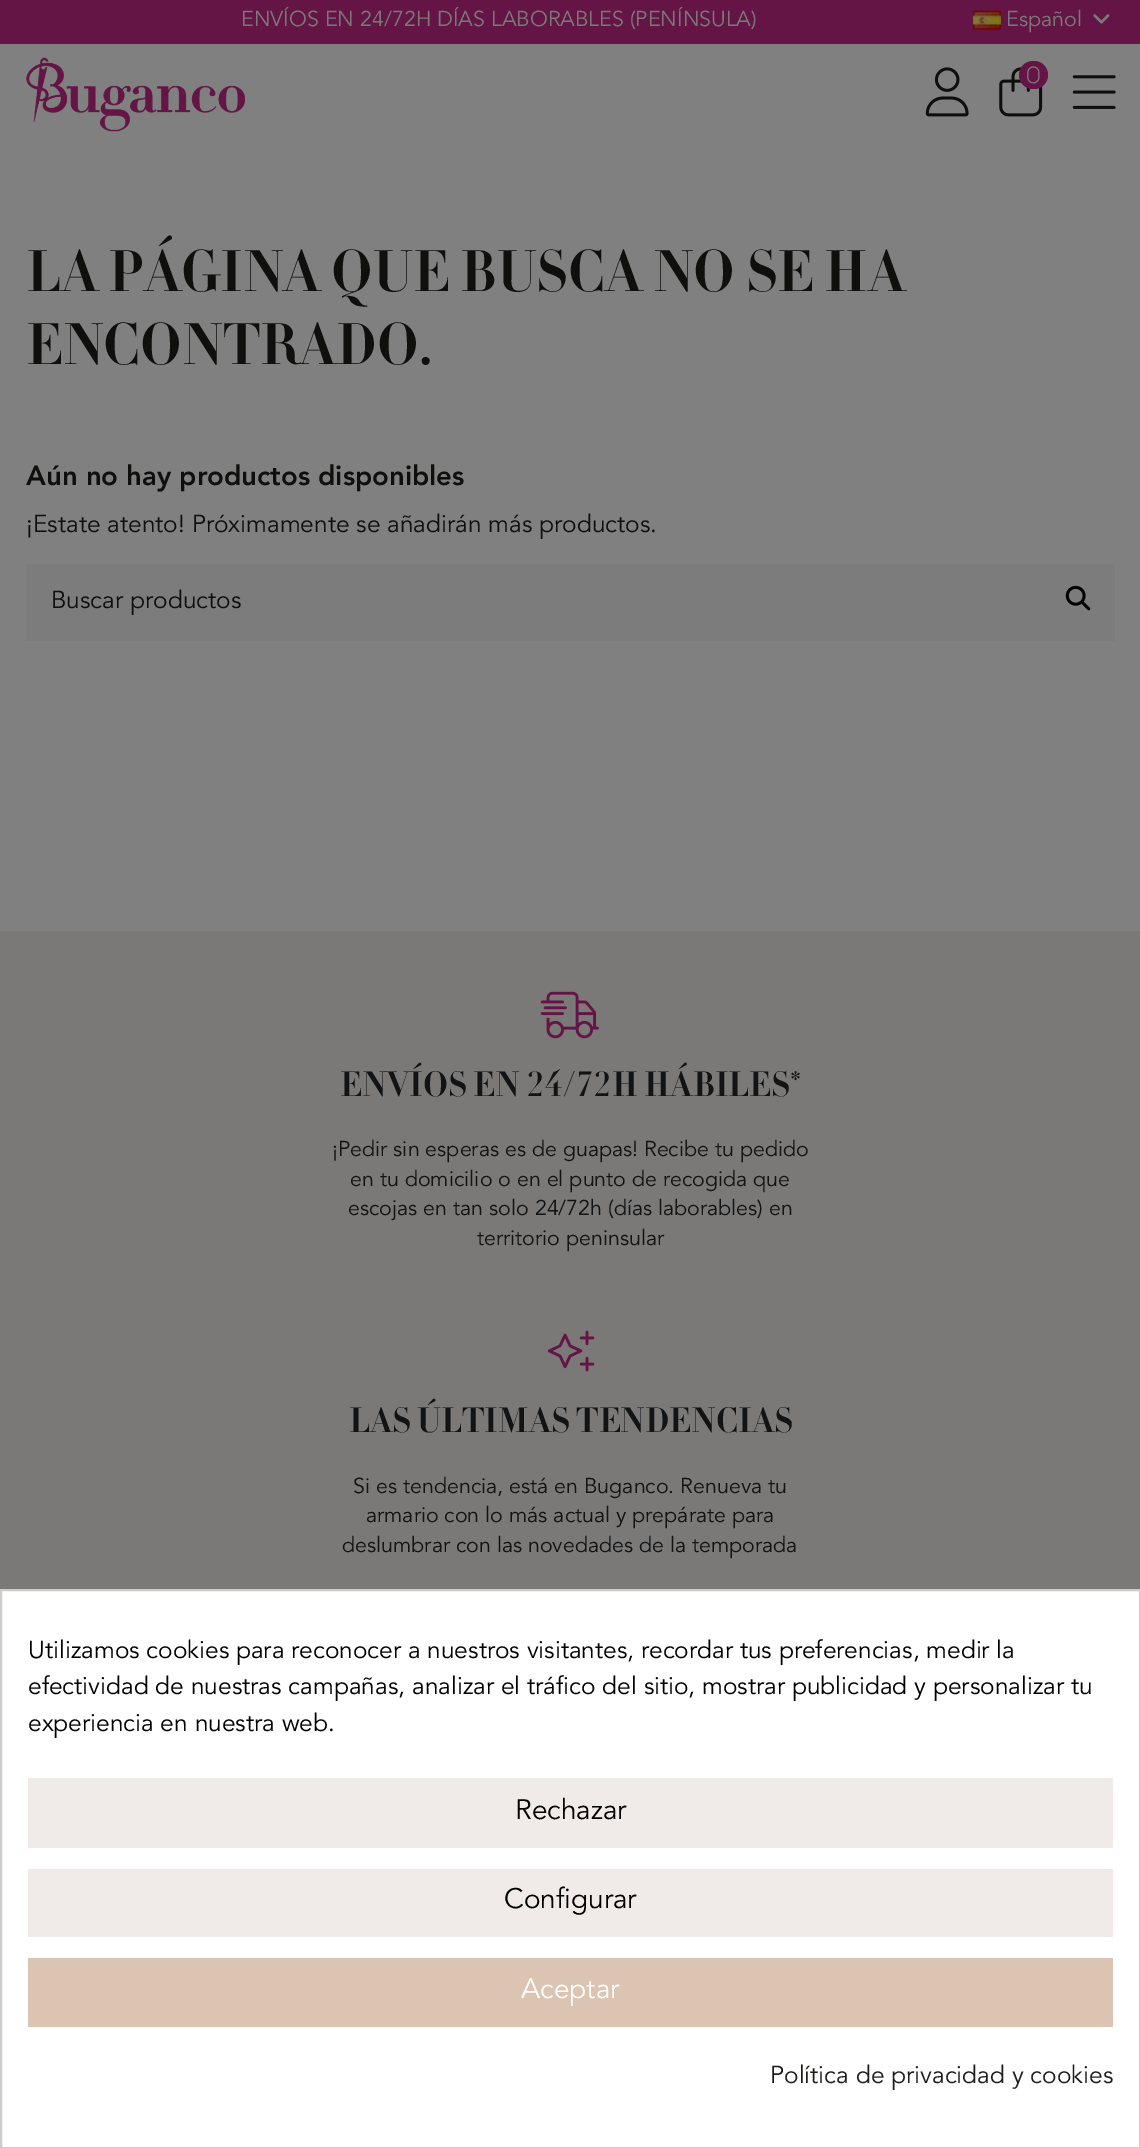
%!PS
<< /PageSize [1140 2148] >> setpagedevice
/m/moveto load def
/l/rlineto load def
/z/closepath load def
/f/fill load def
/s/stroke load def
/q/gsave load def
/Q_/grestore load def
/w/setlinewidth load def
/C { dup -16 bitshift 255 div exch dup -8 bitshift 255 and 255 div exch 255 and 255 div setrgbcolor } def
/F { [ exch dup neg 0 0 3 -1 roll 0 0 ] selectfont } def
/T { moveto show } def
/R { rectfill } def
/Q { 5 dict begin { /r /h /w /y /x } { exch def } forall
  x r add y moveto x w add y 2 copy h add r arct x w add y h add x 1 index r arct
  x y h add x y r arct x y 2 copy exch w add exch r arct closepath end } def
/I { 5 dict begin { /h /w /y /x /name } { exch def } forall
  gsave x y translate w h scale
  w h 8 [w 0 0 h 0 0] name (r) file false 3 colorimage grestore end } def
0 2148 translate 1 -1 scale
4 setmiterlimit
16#808080 C
0 0 1140 2148 R
16#641546 C
0 0 1140 44 R
/Avenir-Regular 21.4 F
16#7A7978 C
(ENVÍOS EN 24/72H DÍAS LABORABLES \(PENÍNSULA\)) 241 26 T
(1.rgb) 973 10 28 20 I
(Español) 1006 26 T
(2.rgb) 1093 14 17 10 I
(3.rgb) 26 57 219 75 I
(4.rgb) 925 67 44 50 I
(6.rgb) 999 67 44 50 I
16#641546 C
1019 61 29 28 14 Q f
(5.rgb) 1027 66 13 18 I
(7.rgb) 1072 75 44 34 I
/Didot-Bold 61.25 F
16#0F0F0E C
(LA PÁGINA QUE BUSCA NO SE HA) 26 291 T
(ENCONTRADO.) 26 364 T
/Avenir-Black 27.5 F
(Aún no hay productos disponibles) 26 485 T
/Avenir-Regular 24.5 F
(¡Estate atento! Próximamente se añadirán más productos.) 26 532 T
16#7C7C7C C
26 564 1089 77 R
16#0F0F0E C
(Buscar productos) 51 608 T
(8.rgb) 1065 585 26 26 I
16#7A7978 C
0 931 1140 658 R
(9.rgb) 540 991 59 48 I
/Didot-Bold 36.75 F
16#111315 C
(ENVÍOS EN 24/72H HÁBILES*) 340 1096 T
/Avenir-Regular 21.4 F
(¡Pedir sin esperas es de guapas! Recibe tu pedido) 332 1156 T
(en tu domicilio o en el punto de recogida que) 350 1186 T
(escojas en tan solo 24/72h \(días laborables\) en) 348 1215 T
(territorio peninsular) 477 1245 T
(10.rgb) 547 1330 48 42 I
/Didot-Bold 36.75 F
(LAS ÚLTIMAS TENDENCIAS) 349 1432 T
/Avenir-Regular 21.4 F
(Si es tendencia, está en Buganco. Renueva tu) 353 1493 T
(armario con lo más actual y prepárate para) 366 1522 T
(deslumbrar con las novedades de la temporada) 342 1552 T
16#FFFFFF C
1 1590 m 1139 0 l 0 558 l -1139 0 l z q f Q_
16#CCCCCC C
2 w
s
/Avenir-Regular 24.5 F
16#000000 C
(Utilizamos cookies para reconocer a nuestros visitantes, recordar tus preferencias, medir la) 28 1658 T
(efectividad de nuestras campañas, analizar el tráfico del sitio, mostrar publicidad y personalizar tu) 28 1694 T
(experiencia en nuestra web.) 28 1731 T
16#F0EBE8 C
28 1778 1085 70 R
/Avenir-Regular 28 F
16#000000 C
(Rechazar) 515 1819 T
16#F0EBE8 C
28 1869 1085 68 R
16#000000 C
(Configurar) 504 1908 T
16#DBC5B2 C
28 1958 1085 69 R
16#FFFFFF C
(Aceptar) 521 1998 T
/Avenir-Regular 24.5 F
16#1D1D1B C
(Política de privacidad y cookies) 770 2083 T
showpage
